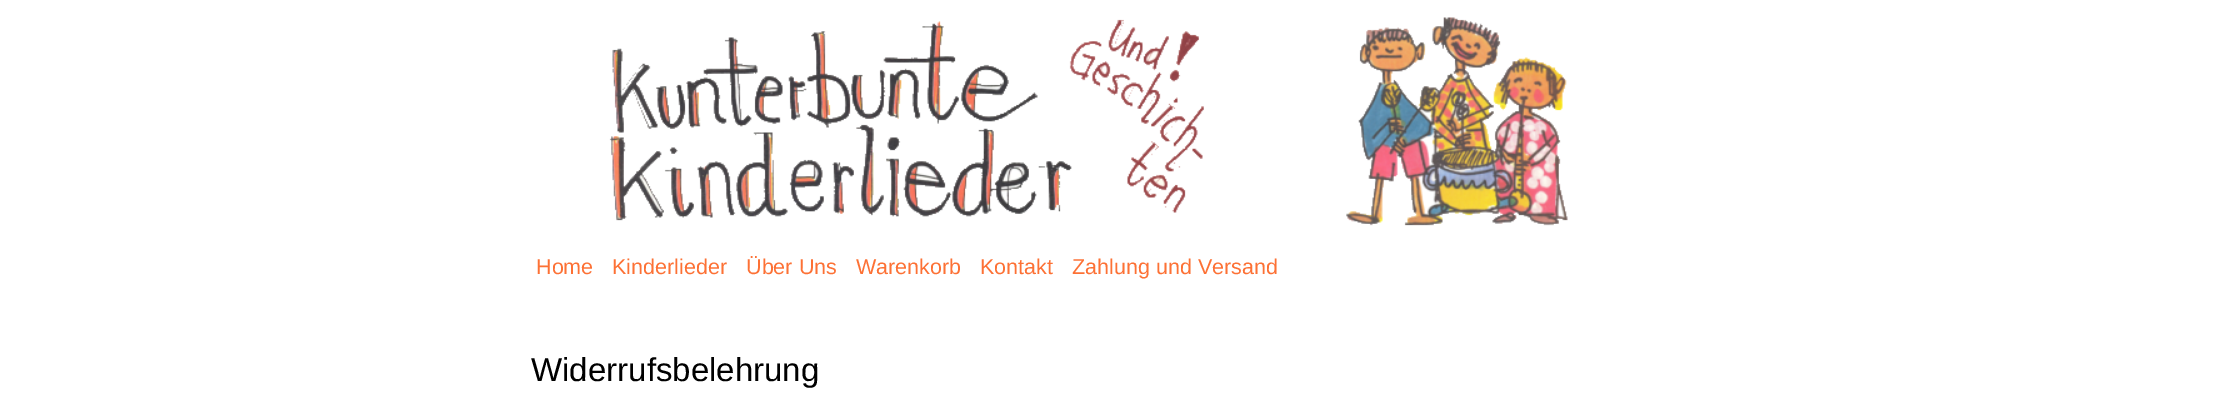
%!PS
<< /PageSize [2223 415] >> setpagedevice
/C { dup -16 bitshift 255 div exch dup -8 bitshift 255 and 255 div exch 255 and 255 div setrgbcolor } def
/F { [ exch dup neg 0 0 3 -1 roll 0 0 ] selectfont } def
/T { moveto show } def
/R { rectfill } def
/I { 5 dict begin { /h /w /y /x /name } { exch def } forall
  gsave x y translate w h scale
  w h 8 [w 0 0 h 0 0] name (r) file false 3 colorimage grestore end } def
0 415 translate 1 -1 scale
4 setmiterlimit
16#FFFFFF C
0 0 2223 415 R
(1.rgb) 609 17 959 209 I
/LiberationSans-Regular 21.5 F
16#FD7135 C
(Home) 536 274 T
(Kinderlieder) 612 274 T
(Über Uns) 746 274 T
(Warenkorb) 856 274 T
(Kontakt) 980 274 T
(Zahlung und Versand) 1072 274 T
/LiberationSans-Regular 33 F
16#000000 C
(Widerrufsbelehrung) 531 381 T
showpage
